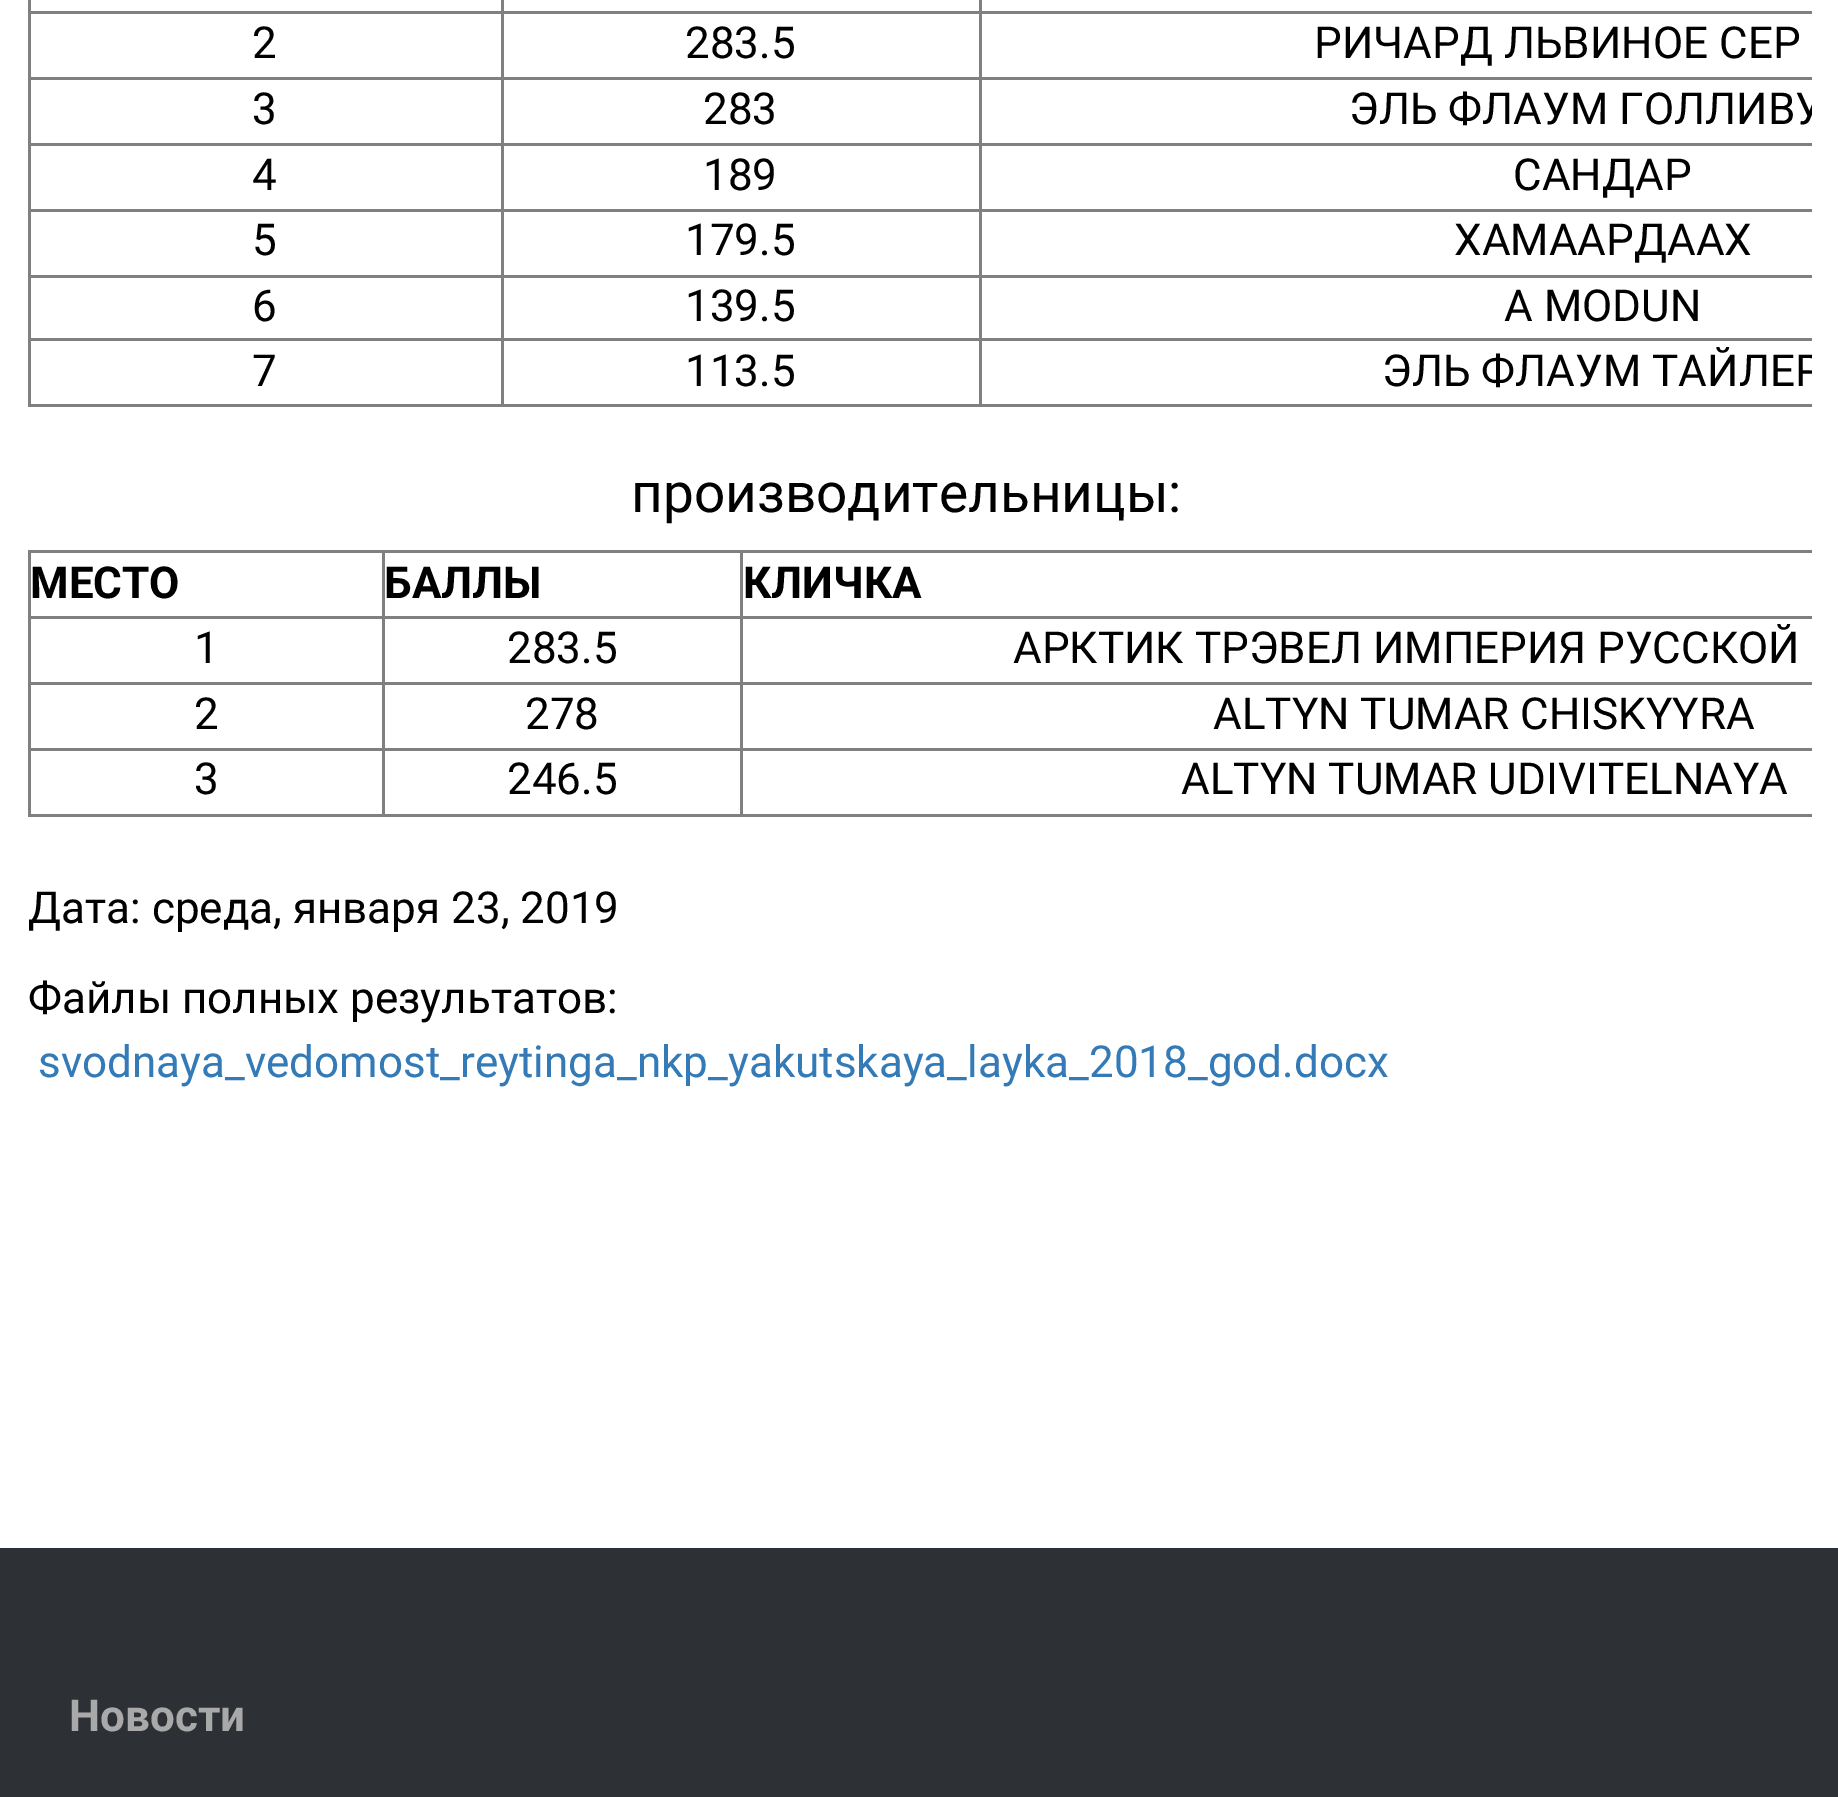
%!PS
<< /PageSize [1838 1797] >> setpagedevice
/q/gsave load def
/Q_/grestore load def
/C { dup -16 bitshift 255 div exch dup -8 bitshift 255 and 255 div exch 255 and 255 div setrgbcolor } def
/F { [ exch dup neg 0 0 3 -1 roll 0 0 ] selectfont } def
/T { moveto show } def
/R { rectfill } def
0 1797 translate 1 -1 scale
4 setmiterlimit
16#FFFFFF C
0 0 1838 1797 R
16#808080 C
28 404 1784 3 R
28 0 3 407 R
979 11 833 3 R
979 77 833 3 R
979 143 833 3 R
979 209 833 3 R
979 275 833 3 R
979 338 833 3 R
979 338 3 69 R
501 338 481 3 R
979 275 3 66 R
501 275 481 3 R
979 209 3 69 R
501 209 481 3 R
979 143 3 69 R
501 143 481 3 R
979 77 3 69 R
501 77 481 3 R
979 11 3 69 R
501 11 481 3 R
501 338 3 69 R
28 338 475 3 R
501 275 3 66 R
28 275 475 3 R
501 209 3 69 R
28 209 475 3 R
501 143 3 69 R
28 143 475 3 R
501 77 3 69 R
28 77 475 3 R
501 11 3 69 R
28 11 475 3 R
501 0 3 14 R
979 0 3 14 R
/Roboto-Regular 44 F
16#000000 C
(2) 252 58 T
(283.5) 685 58 T
(РИЧАРД ЛЬВИНОЕ СЕР) 1314 58 T
(3) 252 124 T
(283) 703 124 T
q
28 0 1784 1260 rectclip
(ЭЛЬ ФЛАУМ ГОЛЛИВУ) 1349 124 T
Q_
(4) 252 190 T
(189) 703 190 T
(САНДАР) 1513 190 T
(5) 252 255 T
(179.5) 685 255 T
(ХАМААРДААХ) 1454 255 T
(6) 252 321 T
(139.5) 685 321 T
(A MODUN) 1504 321 T
(7) 252 386 T
(113.5) 685 386 T
q
28 0 1784 1260 rectclip
(ЭЛЬ ФЛАУМ ТАЙЛЕР) 1382 386 T
Q_
/Roboto-Regular 55 F
(производительницы:) 631 512 T
16#808080 C
28 550 1784 3 R
28 814 1784 3 R
28 550 3 267 R
/Roboto-Bold 44 F
16#000000 C
(МЕСТО) 30 598 T
16#808080 C
740 616 1072 3 R
740 682 1072 3 R
740 748 1072 3 R
740 748 3 69 R
382 748 361 3 R
740 682 3 69 R
382 682 361 3 R
740 616 3 69 R
382 616 361 3 R
382 748 3 69 R
28 748 357 3 R
382 682 3 69 R
28 682 357 3 R
382 616 3 69 R
28 616 357 3 R
382 550 3 69 R
16#000000 C
(БАЛЛЫ) 384 598 T
16#808080 C
740 550 3 69 R
16#000000 C
(КЛИЧКА) 743 598 T
/Roboto-Regular 44 F
(1) 194 663 T
(283.5) 507 663 T
(АРКТИК ТРЭВЕЛ ИМПЕРИЯ РУССКОЙ) 1013 663 T
(2) 194 729 T
(278) 525 729 T
(ALTYN TUMAR CHISKYYRA) 1213 729 T
(3) 194 794 T
(246.5) 507 794 T
(ALTYN TUMAR UDIVITELNAYA) 1181 794 T
(Дата: среда, января 23, 2019) 28 923 T
(Файлы полных результатов:) 28 1013 T
16#337AB7 C
(svodnaya_vedomost_reytinga_nkp_yakutskaya_layka_2018_god.docx) 38 1077 T
16#2D3035 C
0 1548 1838 249 R
/Roboto-Bold 44 F
16#A9A9A9 C
(Новости) 69 1731 T
showpage
